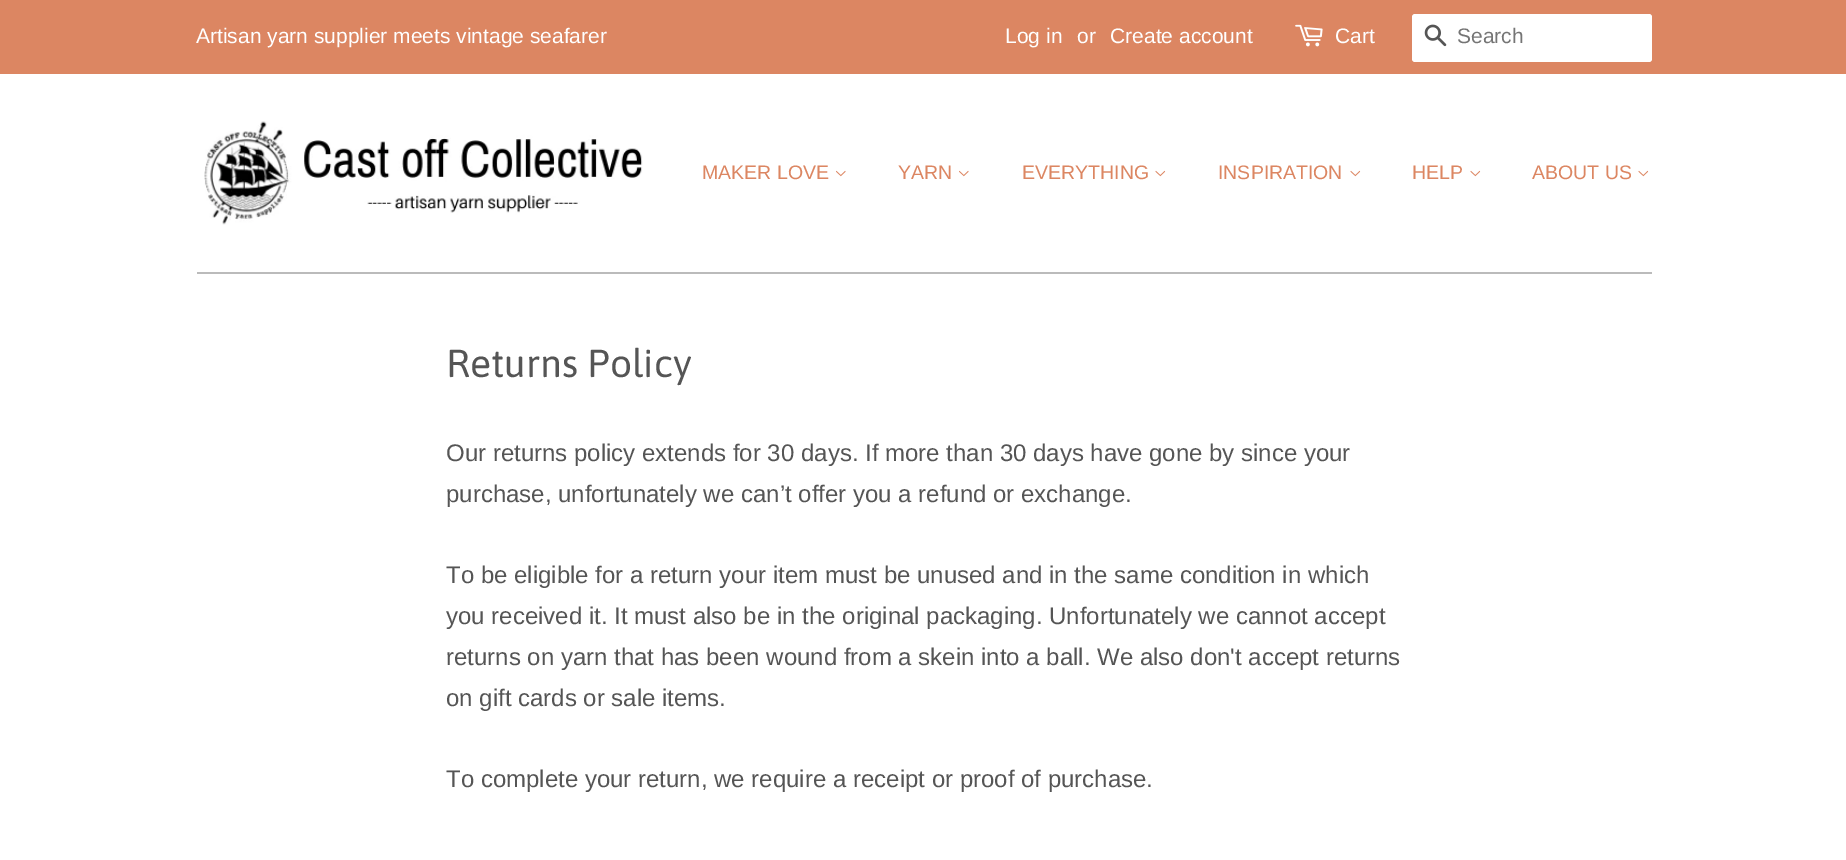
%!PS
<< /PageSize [1846 860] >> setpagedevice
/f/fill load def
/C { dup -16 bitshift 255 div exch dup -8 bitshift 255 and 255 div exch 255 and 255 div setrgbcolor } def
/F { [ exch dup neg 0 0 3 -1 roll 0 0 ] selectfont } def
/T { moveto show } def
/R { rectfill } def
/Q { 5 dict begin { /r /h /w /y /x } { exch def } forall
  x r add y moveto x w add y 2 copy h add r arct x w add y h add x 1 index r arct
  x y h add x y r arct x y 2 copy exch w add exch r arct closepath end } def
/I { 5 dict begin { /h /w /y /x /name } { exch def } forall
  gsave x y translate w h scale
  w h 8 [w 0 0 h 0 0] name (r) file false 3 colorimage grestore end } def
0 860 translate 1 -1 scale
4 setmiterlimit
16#FFFFFF C
0 0 1846 860 R
16#DC8662 C
0 0 1846 74 R
/LiberationSans-Regular 21 F
16#FFFFFF C
(Artisan yarn supplier meets vintage seafarer) 196 43 T
(Log in) 1005 43 T
(or) 1077 43 T
(Create account) 1110 43 T
(1.rgb) 1295 24 28 23 I
(Cart) 1335 43 T
1412 14 240 48 3 Q f
(2.rgb) 1424 24 23 23 I
16#757575 C
(Search) 1457 43 T
16#BBBBBB C
197 272 1455 2 R
(3.rgb) 204 121 439 104 I
/LiberationSans-Regular 19.5 F
16#DC8662 C
(MAKER LOVE) 702 179 T
(4.rgb) 836 170 10 7 I
(YARN) 898 179 T
(4.rgb) 959 170 10 7 I
(EVERYTHING) 1022 179 T
(5.rgb) 1155 170 11 7 I
(INSPIRATION) 1218 179 T
(5.rgb) 1350 170 11 7 I
(HELP) 1412 179 T
(5.rgb) 1470 170 11 7 I
(ABOUT US) 1532 179 T
(5.rgb) 1638 170 11 7 I
/Asap-Regular 39 F
16#555555 C
(Returns Policy) 446 377 T
/LiberationSans-Regular 24 F
(Our returns policy extends for 30 days. If more than 30 days have gone by since your) 446 461 T
(purchase, unfortunately we can’t offer you a refund or exchange.) 446 502 T
(To be eligible for a return your item must be unused and in the same condition in which) 446 583 T
(you received it. It must also be in the original packaging. Unfortunately we cannot accept) 446 624 T
(returns on yarn that has been wound from a skein into a ball. We also don't accept returns) 446 665 T
(on gift cards or sale items.) 446 706 T
(To complete your return, we require a receipt or proof of purchase.) 446 787 T
showpage
